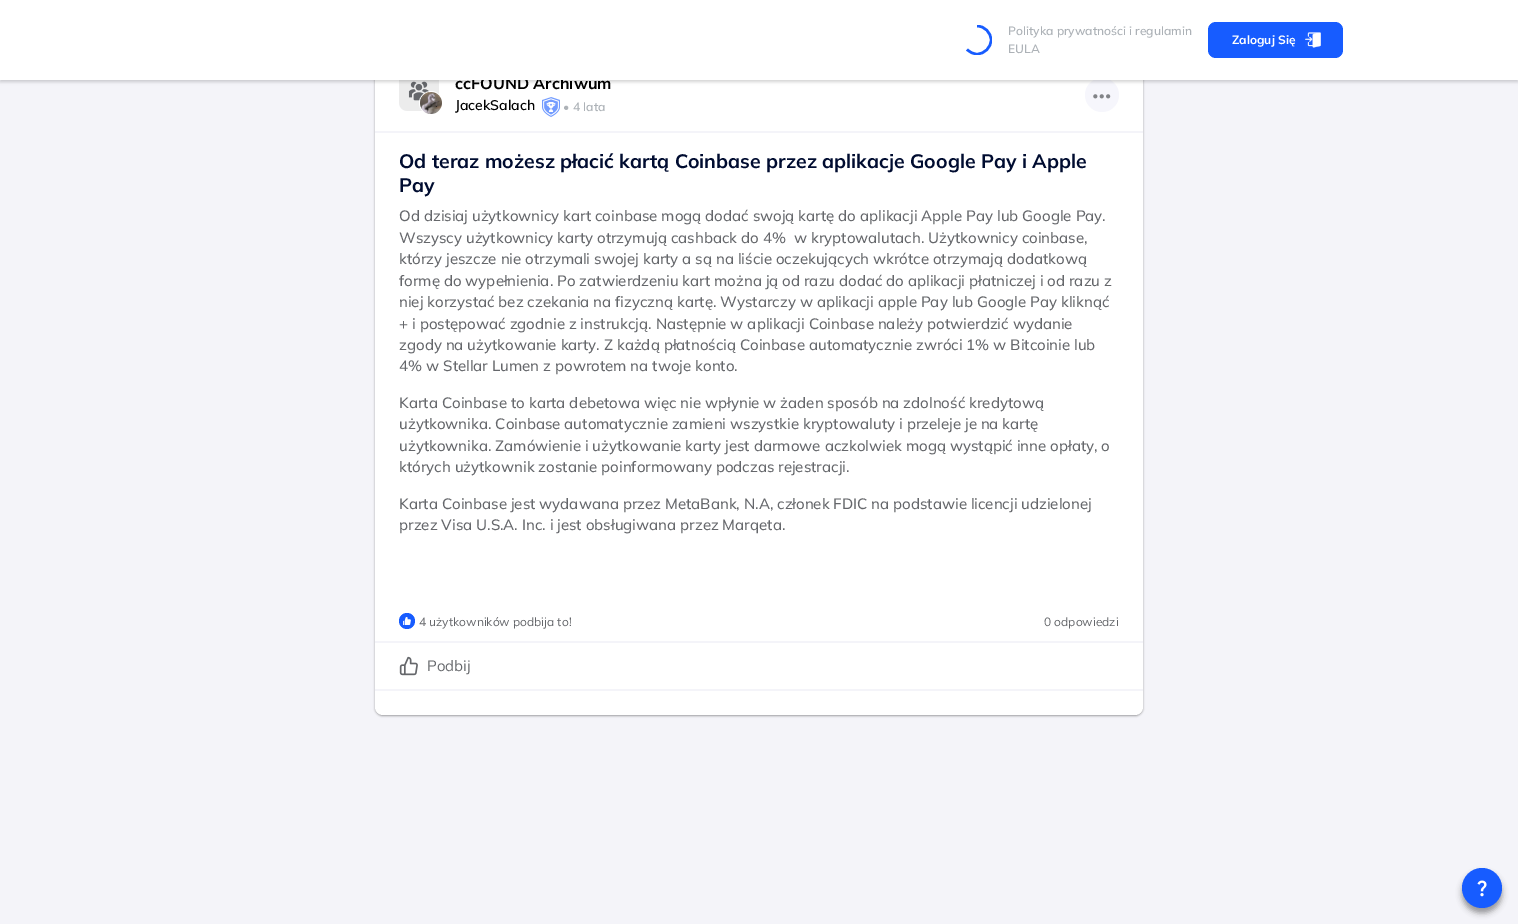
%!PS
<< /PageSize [1518 924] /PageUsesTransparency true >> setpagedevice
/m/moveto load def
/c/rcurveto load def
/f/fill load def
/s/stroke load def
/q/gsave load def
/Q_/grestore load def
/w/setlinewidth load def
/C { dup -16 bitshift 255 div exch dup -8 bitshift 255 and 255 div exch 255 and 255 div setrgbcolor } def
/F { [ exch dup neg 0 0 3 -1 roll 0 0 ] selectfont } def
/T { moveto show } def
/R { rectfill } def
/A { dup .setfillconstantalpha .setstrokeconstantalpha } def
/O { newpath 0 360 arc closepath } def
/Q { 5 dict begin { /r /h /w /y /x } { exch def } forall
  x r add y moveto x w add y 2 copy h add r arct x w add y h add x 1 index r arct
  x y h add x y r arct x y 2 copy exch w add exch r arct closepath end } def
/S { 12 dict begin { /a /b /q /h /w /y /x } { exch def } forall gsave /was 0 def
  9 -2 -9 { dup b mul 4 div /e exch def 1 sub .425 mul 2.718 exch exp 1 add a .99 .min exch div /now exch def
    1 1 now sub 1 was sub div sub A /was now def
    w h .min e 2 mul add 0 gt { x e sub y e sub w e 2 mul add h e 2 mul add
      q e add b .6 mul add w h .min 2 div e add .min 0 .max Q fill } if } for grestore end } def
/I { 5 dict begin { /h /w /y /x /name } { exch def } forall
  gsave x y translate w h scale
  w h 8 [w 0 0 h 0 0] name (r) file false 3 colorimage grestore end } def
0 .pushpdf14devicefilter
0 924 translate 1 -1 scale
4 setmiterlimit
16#F4F4F9 C
0 0 1518 924 R
16#000000 C
375 60 768 656 8 1 .35 S
16#FFFFFF C
375 59 768 656 8 Q f
(2.rgb) 399 80 40 31 I
16#F6F6FC C
1102 95 17 O f
16#000000 C
0 2 1518 80 0 1.5 .16 S
/Mulish-Bold 16 F
(ccFOUND Archiwum) 455 89 T
16#FFFFFF C
0 0 1518 80 R
q
962 25 30 30 rectclip
16#175CFF C
2.5 w
977 26 m 7.5 0 14 6.5 14 14 c 0 7.5 -6.5 14 -14 14 c -4 0 -7.5 -2 -10 -4.5 c s
Q_
/Mulish-SemiBold 12 F
16#ADB2B7 C
(Polityka prywatności i regulamin) 1008 35 T
(EULA) 1008 53 T
16#175CFF C
1208 22 135 36 8 Q f
/Mulish-Bold 12 F
16#FFFFFF C
(Zaloguj Się) 1232 44 T
(1.rgb) 1305 32 16 16 I
431 103 11.5 O s
(3.rgb) 420 92 22 22 I
/Mulish-SemiBold 14 F
16#000000 C
(JacekSalach) 455 110 T
(4.rgb) 542 97 18 20 I
/Mulish-SemiBold 12 F
16#ADB2B7 C
(•) 563 111 T
(4 lata) 573 111 T
(5.rgb) 1093 94 18 5 I
16#F4F4F9 C
375 131 768 2 R
375 641 768 2 R
/Mulish-Bold 19.45 F
16#000C30 C
(Od teraz możesz płacić kartą Coinbase przez aplikacje Google Pay i Apple) 399 168 T
(Pay) 399 192 T
/Mulish-Medium 15 F
16#65676B C
(Od dzisiaj użytkownicy kart coinbase mogą dodać swoją kartę do aplikacji Apple Pay lub Google Pay.) 399 221 T
(Wszyscy użytkownicy karty otrzymują cashback do 4%  w kryptowalutach. Użytkownicy coinbase,) 399 243 T
(którzy jeszcze nie otrzymali swojej karty a są na liście oczekujących wkrótce otrzymają dodatkową) 399 264 T
(formę do wypełnienia. Po zatwierdzeniu kart można ją od razu dodać do aplikacji płatniczej i od razu z) 399 286 T
(niej korzystać bez czekania na fizyczną kartę. Wystarczy w aplikacji apple Pay lub Google Pay kliknąć) 399 307 T
(+ i postępować zgodnie z instrukcją. Następnie w aplikacji Coinbase należy potwierdzić wydanie) 399 329 T
(zgody na użytkowanie karty. Z każdą płatnością Coinbase automatycznie zwróci 1% w Bitcoinie lub) 399 350 T
(4% w Stellar Lumen z powrotem na twoje konto.) 399 371 T
(Karta Coinbase to karta debetowa więc nie wpłynie w żaden sposób na zdolność kredytową) 399 408 T
(użytkownika. Coinbase automatycznie zamieni wszystkie kryptowaluty i przeleje je na kartę) 399 429 T
(użytkownika. Zamówienie i użytkowanie karty jest darmowe aczkolwiek mogą wystąpić inne opłaty, o) 399 451 T
(których użytkownik zostanie poinformowany podczas rejestracji.) 399 472 T
(Karta Coinbase jest wydawana przez MetaBank, N.A, członek FDIC na podstawie licencji udzielonej) 399 509 T
(przez Visa U.S.A. Inc. i jest obsługiwana przez Marqeta.) 399 530 T
16#175CFF C
407 621 8 O f
(6.rgb) 403 617 8 8 I
/Mulish-Regular 12 F
16#65676B C
(4 użytkowników podbija to!) 419 626 T
(0 odpowiedzi) 1044 626 T
(7.rgb) 399 656 19 20 I
/Mulish-Regular 15 F
(Podbij) 427 671 T
16#F4F4F9 C
375 689 768 2 R
16#000000 C
1462 873 40 40 20 3 .38 S
16#175CFF C
1482 888 20 O f
(8.rgb) 1477 880 10 17 I
.poppdf14devicefilter showpage
